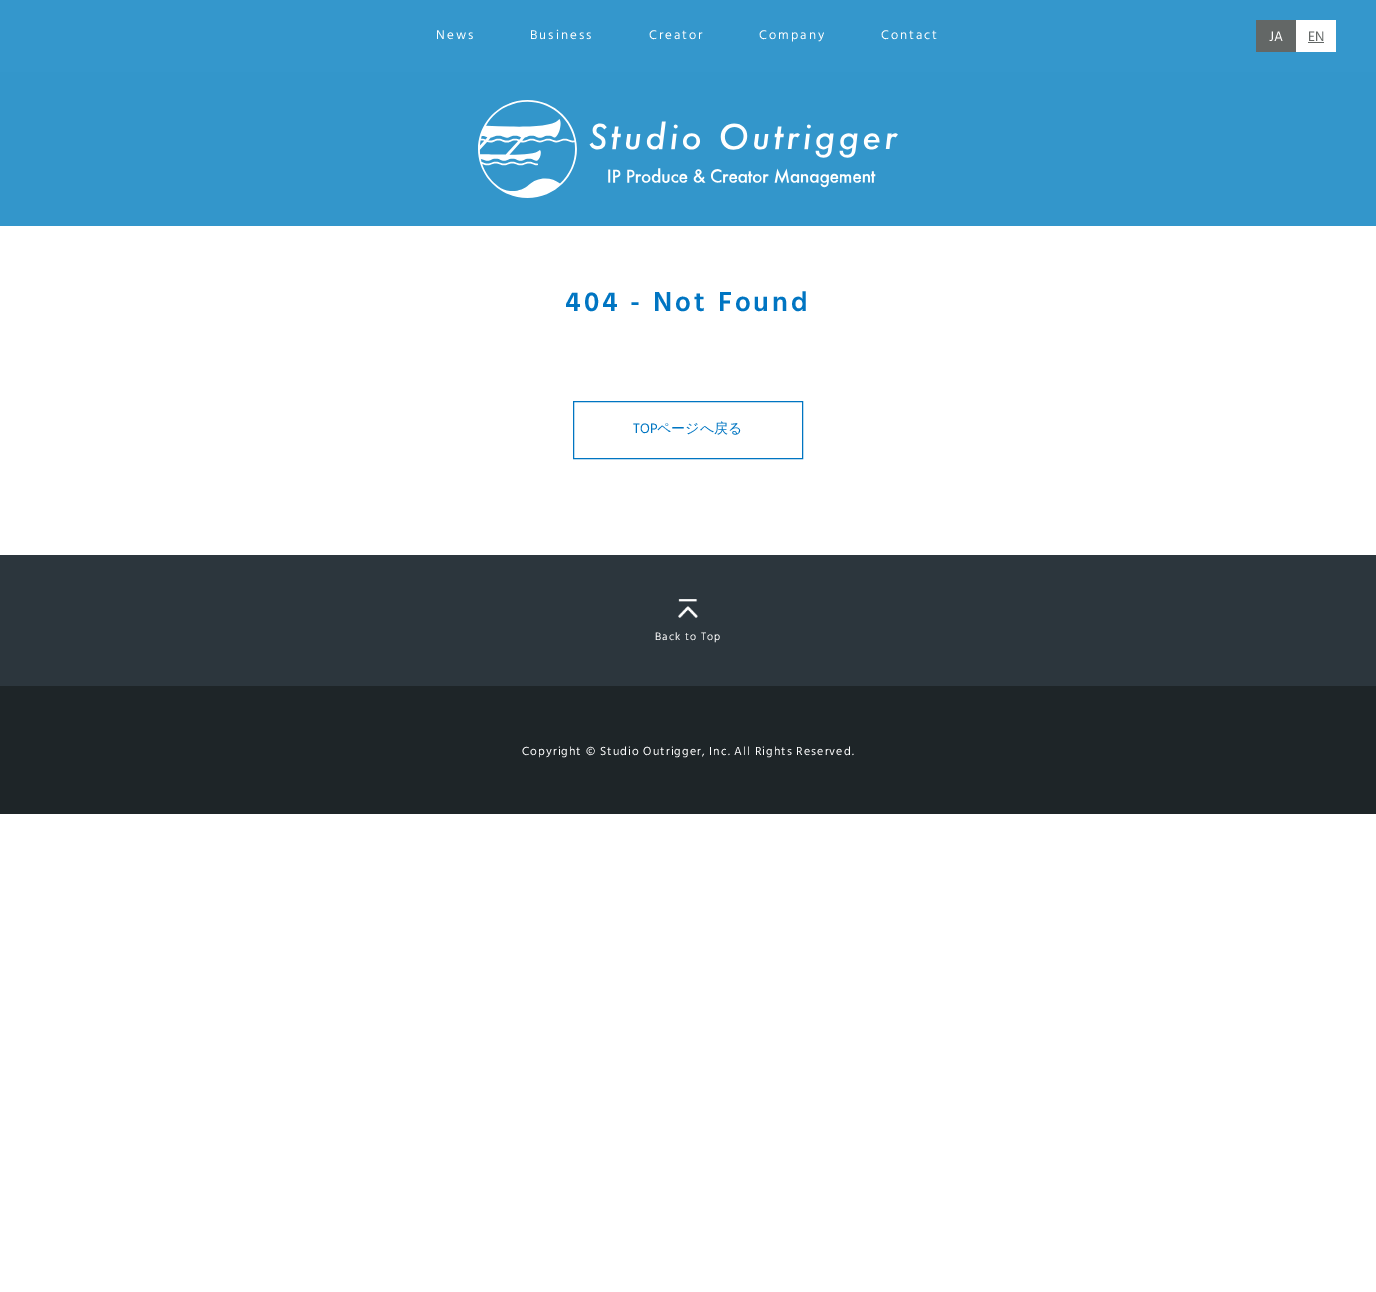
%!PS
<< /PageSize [1376 1292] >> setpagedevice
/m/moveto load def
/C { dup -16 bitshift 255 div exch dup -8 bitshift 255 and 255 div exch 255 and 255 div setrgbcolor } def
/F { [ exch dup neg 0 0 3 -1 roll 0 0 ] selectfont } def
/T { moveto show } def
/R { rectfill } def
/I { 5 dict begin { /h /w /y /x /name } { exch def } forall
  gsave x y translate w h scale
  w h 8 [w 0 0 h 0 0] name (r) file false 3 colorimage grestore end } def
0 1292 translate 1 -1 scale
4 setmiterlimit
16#FFFFFF C
0 0 1376 1292 R
16#3497CC C
0 0 1376 72 R
/Hind-Regular 13 F
16#FFFFFF C
436 39 m 2 0 (News) ashow
530 39 m 2 0 (Business) ashow
649 39 m 2 0 (Creator) ashow
759 39 m 2 0 (Company) ashow
881 39 m 2 0 (Contact) ashow
16#636766 C
1256 20 40 32 R
/Hind-Regular 14 F
16#FFFFFF C
(JA) 1269 41 T
1296 20 40 32 R
16#636766 C
(EN) 1308 41 T
1308 42 16 1 R
16#3396CB C
0 72 1376 154 R
(1.rgb) 478 100 420 98 I
/Hind-SemiBold 28 F
16#0075C2 C
565 311 m 3 0 (404 - Not Found) ashow
573.5 401.5 229 57 rectstroke
/Hind-Regular 14 F
(TOP) 633 433 T
/WenQuanYiZenHei-Medium 14 F
(ページへ戻る) 657 433 T
16#2C363D C
0 555 1376 131 R
(2.rgb) 678 599 20 19 I
/Hind-Regular 11 F
16#FFFFFF C
655 640 m 1 0 (Back to Top) ashow
16#1E2528 C
0 686 1376 128 R
/Hind-Regular 12 F
16#FFFFFF C
522 755 m 1 0 (Copyright © Studio Outrigger, Inc. All Rights Reserved.) ashow
showpage
